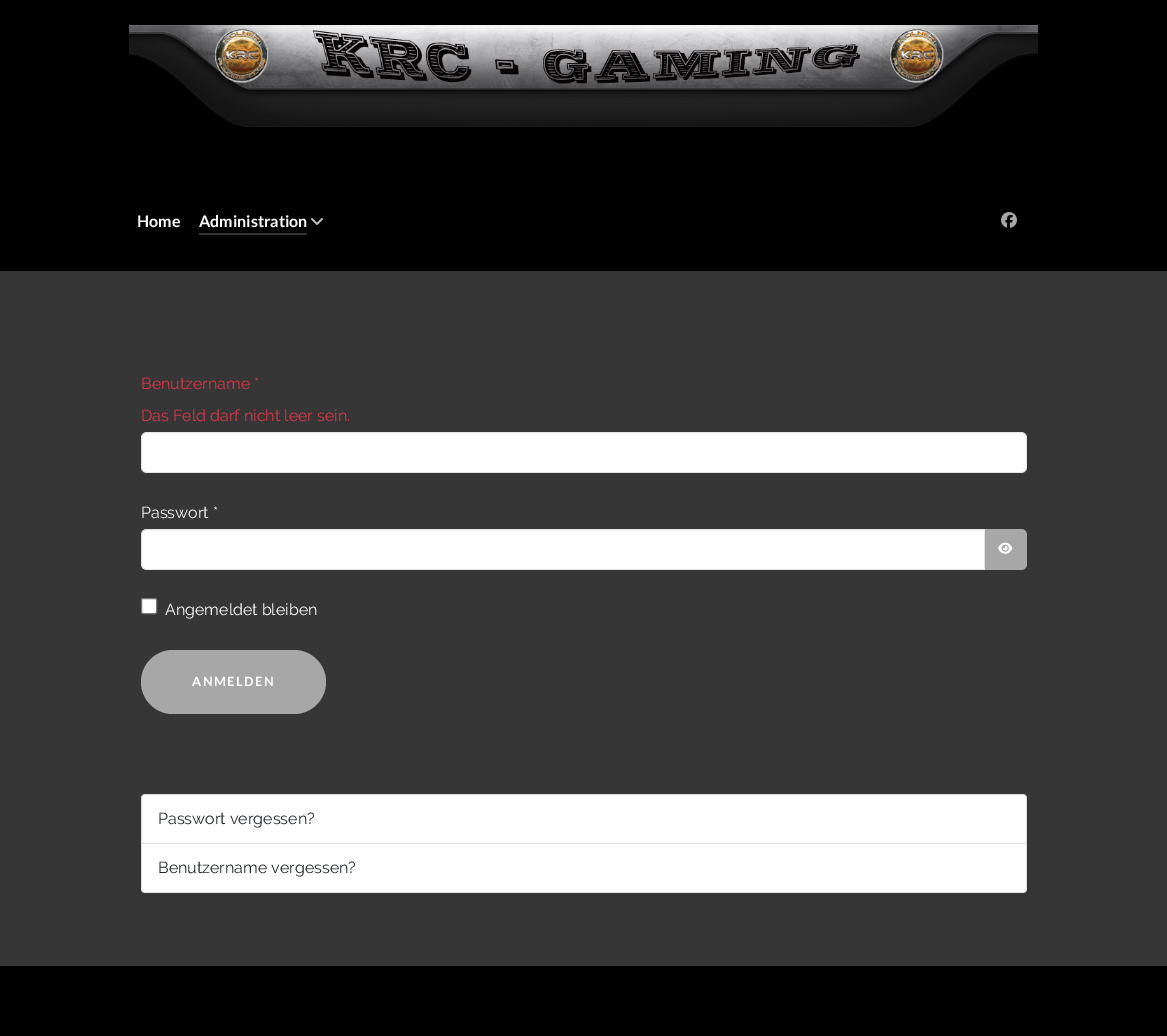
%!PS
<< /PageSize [1167 1036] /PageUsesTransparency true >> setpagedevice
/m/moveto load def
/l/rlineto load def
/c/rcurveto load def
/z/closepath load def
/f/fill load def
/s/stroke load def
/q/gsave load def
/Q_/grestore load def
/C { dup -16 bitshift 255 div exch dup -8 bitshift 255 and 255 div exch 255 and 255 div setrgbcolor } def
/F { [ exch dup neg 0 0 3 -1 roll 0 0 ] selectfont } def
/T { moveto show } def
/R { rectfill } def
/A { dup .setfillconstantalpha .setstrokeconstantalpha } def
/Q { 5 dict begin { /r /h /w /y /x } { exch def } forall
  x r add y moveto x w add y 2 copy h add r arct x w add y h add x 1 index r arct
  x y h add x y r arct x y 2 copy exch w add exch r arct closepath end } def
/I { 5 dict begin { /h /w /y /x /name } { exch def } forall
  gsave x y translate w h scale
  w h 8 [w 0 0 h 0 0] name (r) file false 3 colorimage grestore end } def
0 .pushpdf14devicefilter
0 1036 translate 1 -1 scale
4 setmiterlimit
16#363636 C
0 0 1167 1036 R
16#000000 C
0 0 1167 271 R
(1.rgb) 129 25 909 102 I
/Lato-Bold 16 F
16#FFFFFF C
(Home) 137 227 T
16#333333 C
199 233 108 2 R
16#FFFFFF C
(Administration) 199 227 T
(2.rgb) 311 218 12 7 I
(3.rgb) 1001 212 16 16 I
/Raleway-Regular 16 F
16#DC3545 C
(Benutzername *) 141 389 T
(Das Feld darf nicht leer sein.) 141 421 T
16#FFFFFF C
141 432 886 41 6 Q f
0.1 A
16#000000 C
141.5 432.5 885 40 5.5 Q s
1 A
16#FFFFFF C
(Passwort *) 141 518 T
147 529 m 838 0 l 0 41 l -838 0 l -3.5 0 -6 -2.5 -6 -6 c 0 -29 l 0 -3.5 2.5 -6 6 -6 c z f
0.1 A
16#000000 C
147 529.5 m 837.5 0 l 0 40 l -837.5 0 l -3 0 -5.5 -2.5 -5.5 -5.5 c 0 -29 l 0 -3 2.5 -5.5 5.5 -5.5 c z s
1 A
16#A8A7A7 C
985 529 m 36 0 l 3.5 0 6 2.5 6 6 c 0 29 l 0 3.5 -2.5 6 -6 6 c -36 0 l z f
(4.rgb) 998 542 15 12 I
16#FFFFFF C
141.5 598.5 15 15 1.5 Q q f Q_
16#767676 C
s
16#FFFFFF C
(Angemeldet bleiben) 165 615 T
16#A8A7A7 C
141 650 185 64 32 Q f
/Lato-Bold 12.75 F
16#FFFFFF C
192 686 m 1.5 0 (ANMELDEN) ashow
145 794 m 878 0 l 2 0 4 2 4 4 c 0 46 l -886 0 l 0 -46 l 0 -2 2 -4 4 -4 c z f
0.12 A
16#000000 C
145 794.5 m 878 0 l 2 0 3.5 1.5 3.5 3.5 c 0 45.5 l -885 0 l 0 -45.5 l 0 -2 1.5 -3.5 3.5 -3.5 c z s
/Raleway-Regular 16 F
1 A
16#212529 C
(Passwort vergessen?) 158 824 T
16#FFFFFF C
141 844 m 886 0 l 0 45 l 0 2 -2 4 -4 4 c -878 0 l -2 0 -4 -2 -4 -4 c z f
0.12 A
16#000000 C
141 844 m 886 0 l 0 45 l 0 2 -2 4 -4 4 c -878 0 l -2 0 -4 -2 -4 -4 c z 142 844 m 884 0 l 0 45 l 0 2 -1 3 -3 3 c -878 0 l -2 0 -3 -1 -3 -3 c z eofill
1 A
16#212529 C
(Benutzername vergessen?) 158 873 T
16#000000 C
0 966 1167 70 R
.poppdf14devicefilter showpage
